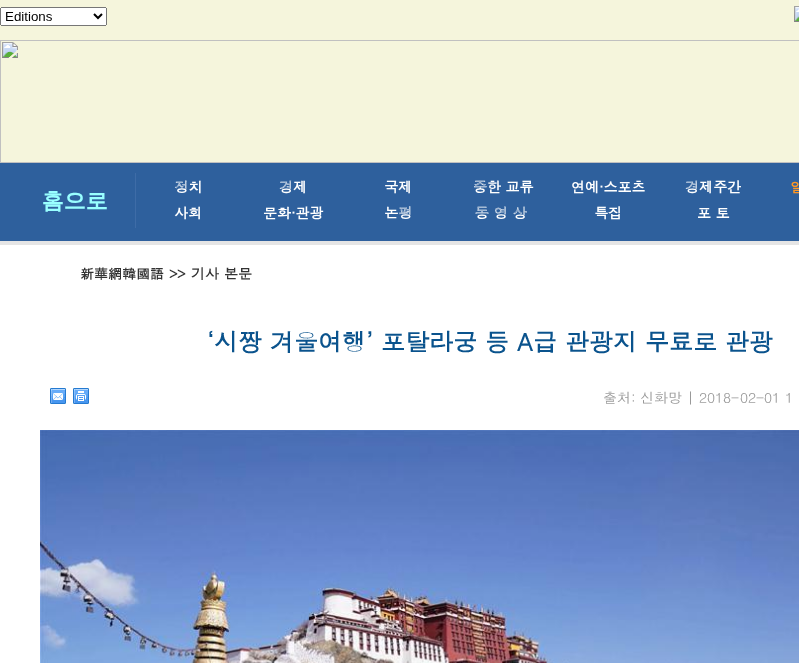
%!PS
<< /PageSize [799 663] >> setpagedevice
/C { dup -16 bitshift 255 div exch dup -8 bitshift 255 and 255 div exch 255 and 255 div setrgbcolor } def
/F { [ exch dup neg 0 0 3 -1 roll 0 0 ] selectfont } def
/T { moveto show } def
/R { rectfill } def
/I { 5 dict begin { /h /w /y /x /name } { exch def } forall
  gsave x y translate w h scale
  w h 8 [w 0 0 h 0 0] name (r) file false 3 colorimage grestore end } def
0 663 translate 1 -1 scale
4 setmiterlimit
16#E5E5E5 C
0 0 799 663 R
(1.rgb) 0 0 799 241 I
16#FFFFFF C
0 245 799 418 R
/Dotum-Bold 14 F
16#333333 C
(新華網韓國語 >> 기사 본문) 80 279 T
/Dotum-Bold 24 F
16#0A538D C
(‘시짱 겨울여행’ 포탈라궁 등 A급 관광지 무료로 관광) 207 351 T
(2.rgb) 50 388 16 16 I
(3.rgb) 73 388 16 16 I
/Dotum-Regular 14 F
16#999999 C
(출처: 신화망 | 2018-02-01 1) 603 403 T
(4.rgb) 40 430 759 233 I
showpage
